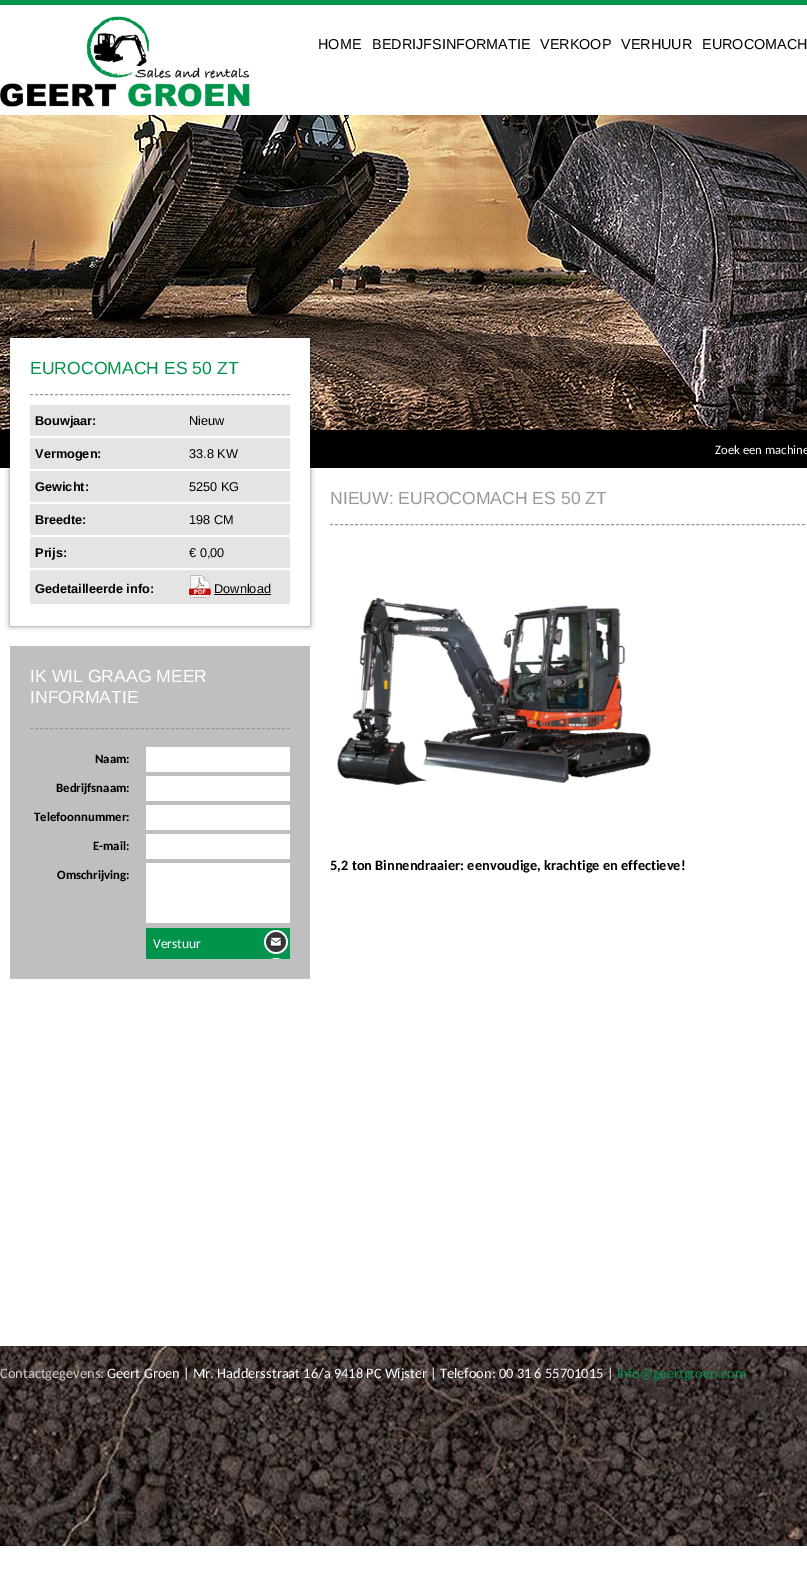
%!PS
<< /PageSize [807 1577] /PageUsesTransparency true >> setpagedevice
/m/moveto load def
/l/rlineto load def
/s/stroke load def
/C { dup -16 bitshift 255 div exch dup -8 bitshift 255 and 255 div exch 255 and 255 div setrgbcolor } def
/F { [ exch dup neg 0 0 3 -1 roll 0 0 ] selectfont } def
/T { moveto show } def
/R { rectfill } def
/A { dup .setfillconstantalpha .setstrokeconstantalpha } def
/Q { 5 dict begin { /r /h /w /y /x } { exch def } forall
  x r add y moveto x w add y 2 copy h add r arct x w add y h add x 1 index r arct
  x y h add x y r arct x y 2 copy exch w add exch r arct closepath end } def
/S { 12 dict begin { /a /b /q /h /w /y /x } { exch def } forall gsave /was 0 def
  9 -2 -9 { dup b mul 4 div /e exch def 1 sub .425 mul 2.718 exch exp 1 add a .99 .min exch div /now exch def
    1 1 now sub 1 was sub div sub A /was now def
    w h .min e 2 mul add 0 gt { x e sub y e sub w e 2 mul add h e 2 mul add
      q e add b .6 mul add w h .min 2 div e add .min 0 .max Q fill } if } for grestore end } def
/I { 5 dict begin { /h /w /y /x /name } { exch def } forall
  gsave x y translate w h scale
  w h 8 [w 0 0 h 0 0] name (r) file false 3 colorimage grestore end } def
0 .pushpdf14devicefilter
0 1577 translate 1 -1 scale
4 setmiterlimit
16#FFFFFF C
0 0 807 1577 R
16#00944B C
0 0 807 5 R
(1.rgb) 0 16 250 91 I
/LiberationSans-Regular 14.4 F
16#000000 C
(HOME) 318 49 T
(BEDRIJFSINFORMATIE) 372 49 T
(VERKOOP) 540 49 T
(VERHUUR) 621 49 T
(EUROCOMACH) 702 49 T
(2.rgb) 0 115 807 315 I
0 430 807 38 R
10 338 300 288 0 2.5 .5 S
16#FFFFFF C
10 338 300 288 R
16#999999 C
[3 2.04] 0 setdash
30 394.5 m 260 0 l s
/LiberationSans-Regular 17.6 F
16#00944B C
(EUROCOMACH ES 50 ZT) 30 374 T
16#E4E4E4 C
30 405 260 31 R
/LiberationSans-Bold 12.75 F
16#000000 C
(Bouwjaar:) 35 425 T
/LiberationSans-Regular 12.75 F
(Nieuw) 189 425 T
16#E4E4E4 C
30 438 260 31 R
/LiberationSans-Bold 12.75 F
16#000000 C
(Vermogen:) 35 458 T
/LiberationSans-Regular 12.75 F
(33.8 KW) 189 458 T
16#E4E4E4 C
30 471 260 31 R
/LiberationSans-Bold 12.75 F
16#000000 C
(Gewicht:) 35 491 T
/LiberationSans-Regular 12.75 F
(5250 KG) 189 491 T
16#E4E4E4 C
30 504 260 31 R
/LiberationSans-Bold 12.75 F
16#000000 C
(Breedte:) 35 524 T
/LiberationSans-Regular 12.75 F
(198 CM) 189 524 T
16#E4E4E4 C
30 537 260 31 R
/LiberationSans-Bold 12.75 F
16#000000 C
(Prijs:) 35 557 T
/LiberationSans-Regular 12.75 F
(€ 0,00) 189 557 T
16#E4E4E4 C
30 570 260 34 R
/LiberationSans-Bold 12.75 F
16#000000 C
(Gedetailleerde info:) 35 593 T
(3.rgb) 189 575 22 23 I
/LiberationSans-Regular 12.75 F
(Download) 214 593 T
214 594 57 1 R
16#999999 C
[3 2.02] 0 setdash
330 524.5 m 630 0 l s
/LiberationSans-Regular 17.6 F
(NIEUW: EUROCOMACH ES 50 ZT) 330 504 T
(4.rgb) 337 597 314 188 I
/Carlito-Bold 14.4 F
16#000000 C
(5,2 ton Binnendraaier: eenvoudige, krachtige en effectieve!) 330 870 T
16#BFBFBF C
10 646 300 333 R
16#999999 C
[3 2.04] 0 setdash
30 728.5 m 260 0 l s
/LiberationSans-Regular 17.6 F
16#FFFFFF C
(IK WIL GRAAG MEER) 30 682 T
(INFORMATIE) 30 703 T
/Carlito-Bold 12.75 F
16#000000 C
(Naam:) 95 763 T
16#FFFFFF C
146 747 144 25 R
16#000000 C
(Bedrijfsnaam:) 56 792 T
16#FFFFFF C
146 776 144 25 R
16#000000 C
(Telefoonnummer:) 34 821 T
16#FFFFFF C
146 805 144 25 R
16#000000 C
(E-mail:) 93 850 T
16#FFFFFF C
146 834 144 25 R
16#000000 C
(Omschrijving:) 57 879 T
16#FFFFFF C
146 863 144 60 R
(5.rgb) 146 928 144 31 I
/Carlito-Regular 13.5 F
(Verstuur) 153 948 T
/Carlito-Regular 12.75 F
(Zoek een machine) 715 454 T
(6.rgb) 0 1346 807 200 I
/Carlito-Regular 14.4 F
16#CCCCCC C
(Contactgegevens:) 0 1378 T
16#FFFFFF C
(Geert Groen | Mr. Haddersstraat 16/a 9418 PC Wijster | Telefoon: 00 31 6 55701015 |) 107 1378 T
16#00944B C
(info@geertgroen.com) 617 1378 T
.poppdf14devicefilter showpage
